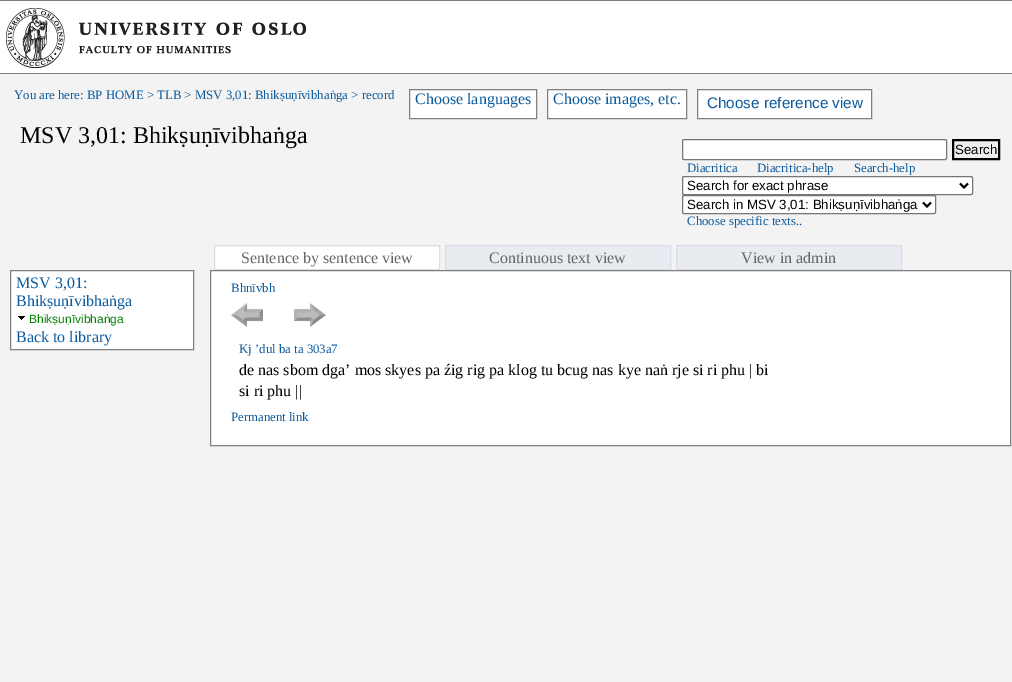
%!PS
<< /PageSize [1012 682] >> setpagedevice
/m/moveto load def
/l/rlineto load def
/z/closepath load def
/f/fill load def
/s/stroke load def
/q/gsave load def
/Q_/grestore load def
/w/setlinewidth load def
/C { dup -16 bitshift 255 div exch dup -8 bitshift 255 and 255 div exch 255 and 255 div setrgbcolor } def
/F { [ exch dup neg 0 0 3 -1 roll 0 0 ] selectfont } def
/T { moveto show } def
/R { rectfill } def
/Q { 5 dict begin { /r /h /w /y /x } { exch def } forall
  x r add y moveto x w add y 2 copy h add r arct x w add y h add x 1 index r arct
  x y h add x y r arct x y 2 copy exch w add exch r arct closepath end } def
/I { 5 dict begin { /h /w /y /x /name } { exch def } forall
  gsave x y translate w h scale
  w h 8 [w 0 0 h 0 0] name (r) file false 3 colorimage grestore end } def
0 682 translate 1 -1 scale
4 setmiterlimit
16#F3F3F3 C
0 0 1012 682 R
16#FFFFFF C
0 1 1012 72 R
16#808080 C
0 0 1012 1 R
0 73 1012 1 R
(1.rgb) 6 8 300 60 I
/LiberationSerif-Regular 12.8 F
16#0B5A9D C
(You are here: BP HOME > TLB > MSV 3,01: Bhikṣuṇīvibhaṅga > record) 14 99 T
/LiberationSerif-Regular 24 F
16#000000 C
(MSV 3,01: Bhikṣuṇīvibhaṅga) 20 143 T
16#FFFFFF C
409.5 89.5 m 127 0 l 0 29 l -127 0 l z q f Q_
16#808080 C
s
/LiberationSerif-Regular 16 F
16#0B5A9D C
(Choose languages) 415 104 T
16#FFFFFF C
547.5 89.5 m 139 0 l 0 29 l -139 0 l z q f Q_
16#808080 C
s
16#0B5A9D C
(Choose images, etc.) 553 104 T
16#FFFFFF C
697.5 89.5 m 174 0 l 0 29 l -174 0 l z q f Q_
16#808080 C
s
/LiberationSans-Regular 15.25 F
16#0B5A9D C
(Choose reference view) 707 108 T
16#FFFFFF C
682.5 139.5 264 20 1.5 Q q f Q_
16#767676 C
s
16#EEEEEE C
953 140 m 46 0 l 0 19 l -46 0 l z q f Q_
16#000000 C
2 w
s
/LiberationSans-Regular 13.3 F
(Search) 955 154 T
/LiberationSerif-Regular 12.8 F
16#0B5A9D C
(Diacritica) 687 172 T
(Diacritica-help) 757 172 T
(Search-help) 854 172 T
16#FFFFFF C
682.5 176.5 290 18 1.5 Q q f Q_
16#767676 C
1 w
s
16#000000 C
2 w
960 183.5 m 4 4 l 4 -4 l s
/LiberationSans-Regular 13.3 F
(Search for exact phrase) 687 190 T
16#FFFFFF C
682.5 195.5 253 18 1.5 Q q f Q_
16#767676 C
1 w
s
16#000000 C
2 w
923 202.5 m 4 4 l 4 -4 l s
(Search in MSV 3,01: Bhikṣuṇīvibhaṅga) 687 209 T
/LiberationSerif-Regular 12.8 F
16#0B5A9D C
(Choose specific texts..) 687 225 T
16#FFFFFF C
214.5 245.5 m 225 0 l 0 24 l -225 0 l z q f Q_
16#DCDCE9 C
1 w
s
/LiberationSerif-Regular 16 F
16#666666 C
(Sentence by sentence view) 241 263 T
16#E8EBF0 C
445.5 245.5 m 225 0 l 0 24 l -225 0 l z q f Q_
16#DCDCE9 C
s
16#666666 C
(Continuous text view) 489 263 T
16#E8EBF0 C
676.5 245.5 m 225 0 l 0 24 l -225 0 l z q f Q_
16#DCDCE9 C
s
16#666666 C
(View in admin) 741 263 T
16#FFFFFF C
10.5 270.5 m 183 0 l 0 79 l -183 0 l z q f Q_
16#808080 C
s
16#0B5A9D C
(MSV 3,01:) 16 288 T
(Bhikṣuṇīvibhaṅga) 16 306 T
(2.rgb) 18 316 7 4 I
/LiberationSans-Regular 12 F
16#008000 C
(Bhikṣuṇīvibhaṅga) 29 323 T
/LiberationSerif-Regular 16 F
16#0B5A9D C
(Back to library) 16 342 T
16#FFFFFF C
210.5 270.5 m 800 0 l 0 175 l -800 0 l z q f Q_
16#808080 C
s
/LiberationSerif-Regular 12.8 F
16#0B5A9D C
(Bhnīvbh) 231 292 T
(3.rgb) 231 303 32 24 I
(4.rgb) 294 303 32 24 I
(Kj ’dul ba ta 303a7) 239 353 T
/LiberationSerif-Regular 16 F
16#000000 C
(de nas sbom dga’ mos skyes pa źig rig pa klog tu bcug nas kye naṅ rje si ri phu | bi) 239 375 T
(si ri phu ||) 239 396 T
/LiberationSerif-Regular 12.8 F
16#0B5A9D C
(Permanent link) 231 421 T
showpage
